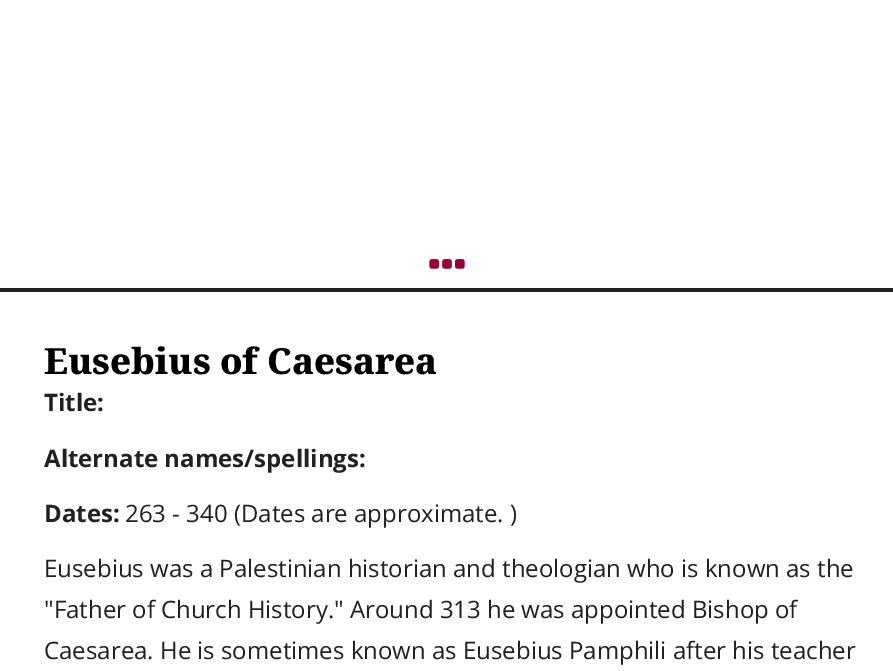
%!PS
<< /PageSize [893 671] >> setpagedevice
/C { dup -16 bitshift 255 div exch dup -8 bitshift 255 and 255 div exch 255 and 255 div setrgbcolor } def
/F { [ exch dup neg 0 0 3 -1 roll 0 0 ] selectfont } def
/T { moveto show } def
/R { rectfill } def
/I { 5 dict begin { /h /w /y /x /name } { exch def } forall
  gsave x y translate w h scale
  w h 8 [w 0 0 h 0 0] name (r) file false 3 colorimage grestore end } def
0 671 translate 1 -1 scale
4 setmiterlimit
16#FFFFFF C
0 0 893 671 R
(1.rgb) 429 259 36 10 I
16#212121 C
0 288 893 4 R
/NotoSerif-ExtraBold 36 F
16#000000 C
(Eusebius of Caesarea) 44 374 T
/OpenSans-Bold 24 F
16#212121 C
(Title:) 44 411 T
(Alternate names/spellings:) 44 467 T
(Dates:) 44 522 T
/OpenSans-Regular 24 F
(263 - 340 \(Dates are approximate. \)) 125 522 T
(Eusebius was a Palestinian historian and theologian who is known as the) 44 577 T
("Father of Church History." Around 313 he was appointed Bishop of) 44 618 T
(Caesarea. He is sometimes known as Eusebius Pamphili after his teacher) 44 659 T
showpage
